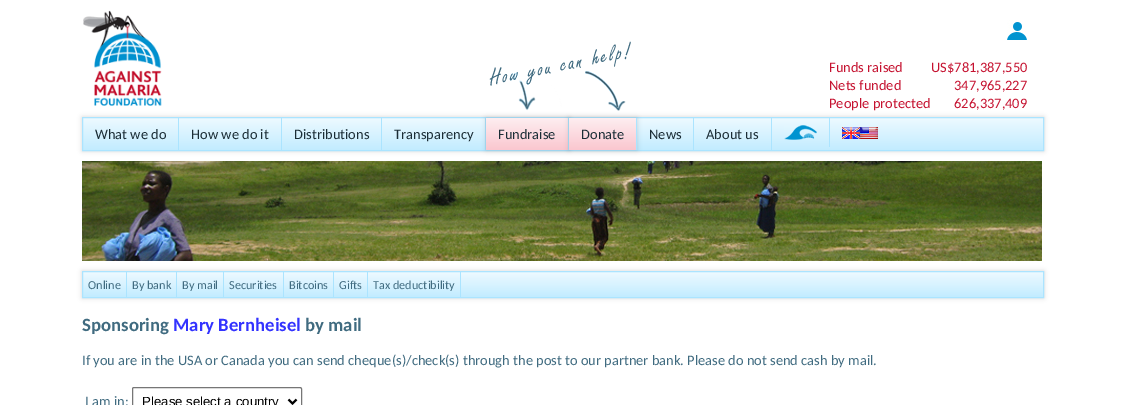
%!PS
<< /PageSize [1124 405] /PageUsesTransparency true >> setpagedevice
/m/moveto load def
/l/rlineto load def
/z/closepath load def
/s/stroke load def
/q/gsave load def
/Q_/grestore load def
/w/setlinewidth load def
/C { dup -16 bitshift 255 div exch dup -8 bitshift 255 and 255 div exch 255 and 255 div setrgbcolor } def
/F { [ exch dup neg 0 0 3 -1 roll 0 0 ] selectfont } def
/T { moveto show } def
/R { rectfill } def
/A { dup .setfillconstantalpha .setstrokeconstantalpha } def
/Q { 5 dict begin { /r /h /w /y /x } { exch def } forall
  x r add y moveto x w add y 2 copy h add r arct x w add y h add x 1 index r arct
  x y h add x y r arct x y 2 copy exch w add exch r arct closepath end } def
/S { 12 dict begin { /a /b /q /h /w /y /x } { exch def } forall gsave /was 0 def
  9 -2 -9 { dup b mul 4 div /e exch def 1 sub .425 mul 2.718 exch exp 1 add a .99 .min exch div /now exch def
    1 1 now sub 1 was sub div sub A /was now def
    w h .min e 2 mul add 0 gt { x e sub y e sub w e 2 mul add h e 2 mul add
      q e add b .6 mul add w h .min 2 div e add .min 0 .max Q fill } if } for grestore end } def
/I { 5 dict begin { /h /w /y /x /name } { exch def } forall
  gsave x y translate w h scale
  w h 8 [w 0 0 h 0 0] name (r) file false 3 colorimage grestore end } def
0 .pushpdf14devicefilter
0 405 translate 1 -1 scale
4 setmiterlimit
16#FFFFFF C
0 0 1124 405 R
(1.rgb) 83 10 79 96 I
(2.rgb) 1007 20 20 20 I
/Carlito-Regular 14.45 F
16#C51230 C
(Funds raised) 829 72 T
(US$781,387,550) 931 72 T
(Nets funded) 829 90 T
(347,965,227) 954 90 T
(People protected) 829 108 T
(626,337,409) 954 108 T
16#000000 C
82 117 962 34 0 2.5 .15 S
q 83 118 m 960 0 l 0 32 l -960 0 l z clip newpath
<< /ShadingType 2 /ColorSpace /DeviceRGB /Coords [83 118 83 150] /Extend [true true] /Function << /FunctionType 3 /Domain [0 1] /Functions [<< /FunctionType 2 /Domain [0 1] /C0 [.922 .976 1] /C1 [.922 .976 1] /N 1 >> << /FunctionType 2 /Domain [0 1] /C0 [.922 .976 1] /C1 [.761 .925 1] /N 1 >>] /Bounds [.05] /Encode [0 1 0 1] >> >> shfill Q_
16#ABE4FF C
82.5 117.5 961 33 rectstroke
485 118 1 32 R
16#000000 C
486 118 83 32 0 2.5 .15 S
q 486 118 m 82 0 l 0 32 l -82 0 l z clip newpath
<< /ShadingType 2 /ColorSpace /DeviceRGB /Coords [486 118 486 150] /Extend [true true] /Function << /FunctionType 3 /Domain [0 1] /Functions [<< /FunctionType 2 /Domain [0 1] /C0 [.992 .925 .937] /C1 [.992 .925 .937] /N 1 >> << /FunctionType 2 /Domain [0 1] /C0 [.992 .925 .937] /C1 [.98 .78 .812] /N 1 >>] /Bounds [.05] /Encode [0 1 0 1] >> >> shfill Q_
16#ABE4FF C
568 118 1 32 R
16#000000 C
569 118 68 32 0 2.5 .15 S
(3.rgb) 489 41 142 70 I
16#ABE4FF C
178 118 1 32 R
16#1B2D36 C
(What we do) 95 139 T
16#ABE4FF C
281 118 1 32 R
16#1B2D36 C
(How we do it) 191 139 T
16#ABE4FF C
381 118 1 32 R
16#1B2D36 C
(Distributions) 294 139 T
(Transparency) 394 139 T
(Fundraise) 498 139 T
q 569 118 m 67 0 l 0 32 l -67 0 l z clip newpath
<< /ShadingType 2 /ColorSpace /DeviceRGB /Coords [569 118 569 150] /Extend [true true] /Function << /FunctionType 3 /Domain [0 1] /Functions [<< /FunctionType 2 /Domain [0 1] /C0 [.992 .925 .937] /C1 [.992 .925 .937] /N 1 >> << /FunctionType 2 /Domain [0 1] /C0 [.992 .925 .937] /C1 [.98 .78 .812] /N 1 >>] /Bounds [.05] /Encode [0 1 0 1] >> >> shfill Q_
16#ABE4FF C
636 118 1 32 R
16#1B2D36 C
(Donate) 581 139 T
16#ABE4FF C
693 118 1 32 R
16#1B2D36 C
(News) 649 139 T
16#ABE4FF C
771 118 1 32 R
16#1B2D36 C
(About us) 706 139 T
16#ABE4FF C
829 118 1 29 R
(4.rgb) 784 125 33 15 I
(5.rgb) 842 127 18 12 I
(6.rgb) 860 127 18 12 I
(7.rgb) 82 161 960 100 I
16#000000 C
82 271 962 27 0 2.5 .15 S
q 83 272 m 960 0 l 0 25 l -960 0 l z clip newpath
<< /ShadingType 2 /ColorSpace /DeviceRGB /Coords [83 272 83 297] /Extend [true true] /Function << /FunctionType 3 /Domain [0 1] /Functions [<< /FunctionType 2 /Domain [0 1] /C0 [.922 .976 1] /C1 [.922 .976 1] /N 1 >> << /FunctionType 2 /Domain [0 1] /C0 [.922 .976 1] /C1 [.761 .925 1] /N 1 >>] /Bounds [.05] /Encode [0 1 0 1] >> >> shfill Q_
16#ABE4FF C
82.5 271.5 961 26 rectstroke
126 272 1 25 R
/Carlito-Regular 12.25 F
16#406B80 C
(Online) 88 289 T
16#ABE4FF C
176 272 1 25 R
16#406B80 C
(By bank) 132 289 T
16#ABE4FF C
223 272 1 25 R
16#406B80 C
(By mail) 182 289 T
16#ABE4FF C
283 272 1 25 R
16#406B80 C
(Securities) 229 289 T
16#ABE4FF C
333 272 1 25 R
16#406B80 C
(Bitcoins) 289 289 T
16#ABE4FF C
367 272 1 25 R
16#406B80 C
(Gifts) 339 289 T
16#ABE4FF C
460 272 1 25 R
16#406B80 C
(Tax deductibility) 373 289 T
/Carlito-Bold 18.75 F
(Sponsoring) 82 331 T
16#3333FF C
(Mary Bernheisel) 173 331 T
16#406B80 C
(by mail) 305 331 T
/Carlito-Regular 14.45 F
(If you are in the USA or Canada you can send cheque\(s\)/check\(s\) through the post to our partner bank. Please do not send cash by mail.) 82 365 T
(I am in:) 85 406 T
16#767676 C
132.5 387.5 169 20 1.5 Q s
16#000000 C
2 w
288.5 399.5 m 4 4 l 4 -4 l s
/LiberationSans-Regular 13.25 F
(Please select a country) 142 406 T
.poppdf14devicefilter showpage
